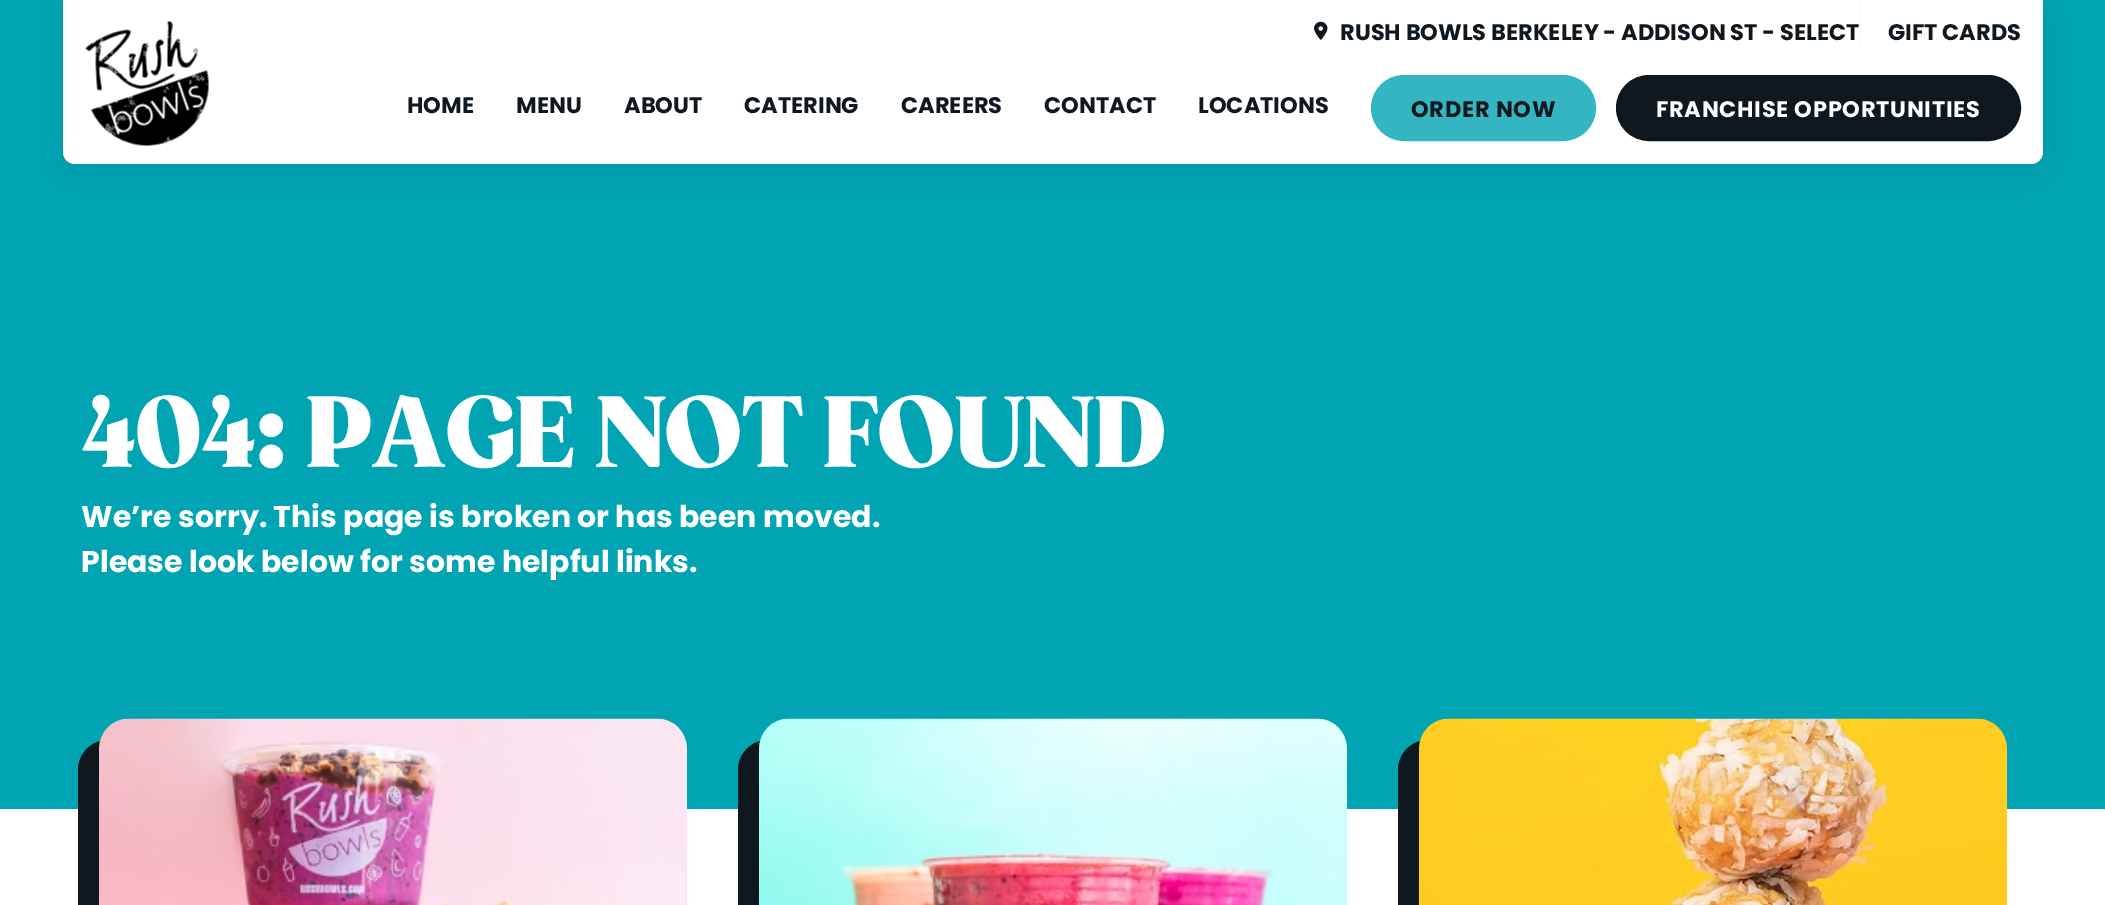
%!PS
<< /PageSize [2105 905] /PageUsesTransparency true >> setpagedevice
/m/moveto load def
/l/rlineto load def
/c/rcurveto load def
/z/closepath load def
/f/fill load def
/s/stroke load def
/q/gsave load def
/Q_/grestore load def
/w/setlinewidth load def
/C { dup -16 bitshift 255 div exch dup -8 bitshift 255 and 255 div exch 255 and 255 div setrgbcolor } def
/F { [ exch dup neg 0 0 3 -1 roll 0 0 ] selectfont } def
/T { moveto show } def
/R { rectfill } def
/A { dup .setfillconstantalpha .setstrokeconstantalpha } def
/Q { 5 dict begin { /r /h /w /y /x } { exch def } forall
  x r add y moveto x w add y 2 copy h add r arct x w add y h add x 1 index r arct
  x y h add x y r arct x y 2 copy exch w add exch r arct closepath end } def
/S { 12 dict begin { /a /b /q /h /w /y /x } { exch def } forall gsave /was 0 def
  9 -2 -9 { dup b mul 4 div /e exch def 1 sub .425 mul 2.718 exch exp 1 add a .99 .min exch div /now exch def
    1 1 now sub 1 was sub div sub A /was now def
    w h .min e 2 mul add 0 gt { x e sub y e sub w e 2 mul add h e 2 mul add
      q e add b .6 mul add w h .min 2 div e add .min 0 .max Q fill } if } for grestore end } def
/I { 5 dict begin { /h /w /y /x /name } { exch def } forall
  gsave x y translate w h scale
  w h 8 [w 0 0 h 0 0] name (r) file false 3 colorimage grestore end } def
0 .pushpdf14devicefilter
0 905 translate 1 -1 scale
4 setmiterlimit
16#FFFFFF C
0 0 2105 905 R
16#00A4B3 C
0 0 2105 809 R
16#000000 C
63 6 1980 164 12 10.5 .08 S
16#FFFFFF C
63 0 m 1980 0 l 0 152 l 0 6.5 -5.5 12 -12 12 c -1956 0 l -6.5 0 -12 -5.5 -12 -12 c z f
16#FCFCFC C
1859 0 2 53 R
(1.rgb) 1314 21 14 19 I
/Poppins-Bold 22.5 F
16#10181F C
(RUSH BOWLS BERKELEY - ADDISON ST - SELECT) 1340 40 T
(GIFT CARDS) 1888 40 T
(2.rgb) 85 21 124 125 I
(HOME) 407 113 T
(MENU) 516 113 T
(ABOUT) 624 113 T
(CATERING) 744 113 T
(CAREERS) 901 113 T
(CONTACT) 1044 113 T
(LOCATIONS) 1198 113 T
16#33B6C2 C
1372 76 223 64 32 Q q f Q_
2 w
s
16#10181F C
1411 117 m .7 0 (ORDER NOW) ashow
1617 76 403 64 32 Q q f Q_
s
16#FFFFFF C
1656 117 m .7 0 (FRANCHISE OPPORTUNITIES) ashow
/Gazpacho-Black 97.5 F
(404: PAGE NOT FOUND) 81 467 T
/Poppins-Bold 30 F
(We’re sorry. This page is broken or has been moved.) 81 527 T
(Please look below for some helpful links.) 81 572 T
16#10181F C
78 740 588 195 30 Q f
(3.rgb) 99 718 588 187 I
738 740 588 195 30 Q f
(4.rgb) 759 718 588 187 I
1398 740 588 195 30 Q f
(5.rgb) 1419 718 588 187 I
.poppdf14devicefilter showpage
